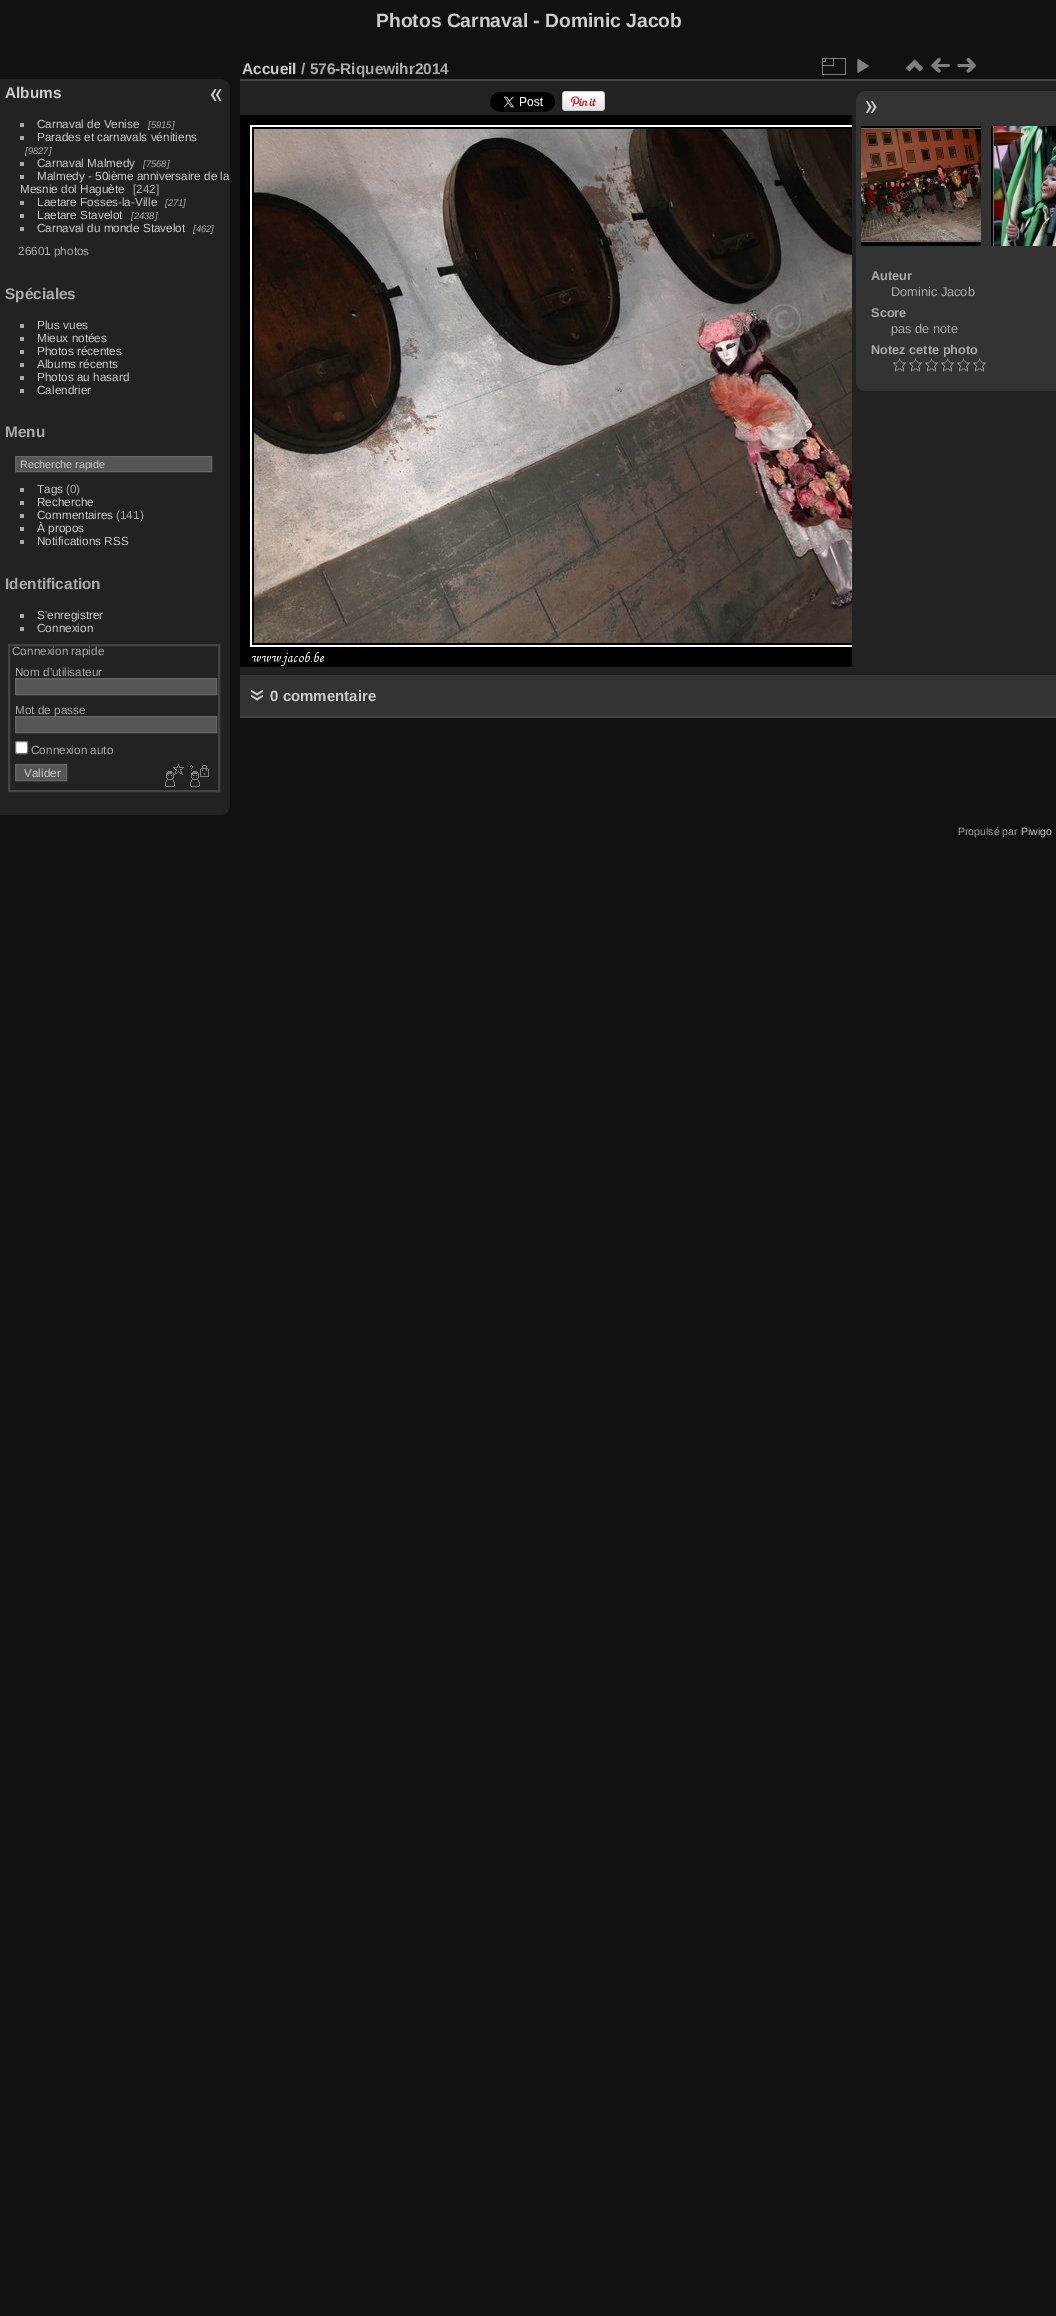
%!PS
<< /PageSize [1056 2316] >> setpagedevice
/m/moveto load def
/l/rlineto load def
/c/rcurveto load def
/z/closepath load def
/f/fill load def
/s/stroke load def
/q/gsave load def
/Q_/grestore load def
/w/setlinewidth load def
/C { dup -16 bitshift 255 div exch dup -8 bitshift 255 and 255 div exch 255 and 255 div setrgbcolor } def
/F { [ exch dup neg 0 0 3 -1 roll 0 0 ] selectfont } def
/T { moveto show } def
/R { rectfill } def
/Q { 5 dict begin { /r /h /w /y /x } { exch def } forall
  x r add y moveto x w add y 2 copy h add r arct x w add y h add x 1 index r arct
  x y h add x y r arct x y 2 copy exch w add exch r arct closepath end } def
/I { 5 dict begin { /h /w /y /x /name } { exch def } forall
  gsave x y translate w h scale
  w h 8 [w 0 0 h 0 0] name (r) file false 3 colorimage grestore end } def
0 2316 translate 1 -1 scale
4 setmiterlimit
16#111111 C
0 0 1056 2316 R
/LiberationSans-Bold 19.25 F
16#CCCCCC C
(Photos Carnaval - Dominic Jacob) 376 27 T
16#222222 C
0 79 m 220 0 l 5.5 0 10 4.5 10 10 c 0 716 l 0 5.5 -4.5 10 -10 10 c -220 0 l z f
/LiberationSans-Bold 15.4 F
16#CCCCCC C
(Albums) 5 98 T
16#AAAAAA C
20 123 4 4 R
/LiberationSans-Regular 11.75 F
16#CCCCCC C
(Carnaval de Venise) 37 128 T
/LiberationSans-Italic 9.5 F
16#AAAAAA C
([5915]) 148 128 T
20 136 4 4 R
/LiberationSans-Regular 11.75 F
16#CCCCCC C
(Parades et carnavals vénitiens) 37 141 T
/LiberationSans-Italic 9.5 F
16#AAAAAA C
([9827]) 25 154 T
20 162 4 4 R
/LiberationSans-Regular 11.75 F
16#CCCCCC C
(Carnaval Malmedy) 37 167 T
/LiberationSans-Italic 9.5 F
16#AAAAAA C
([7568]) 143 167 T
20 175 4 4 R
/LiberationSans-Regular 11.75 F
16#CCCCCC C
(Malmedy - 50ième anniversaire de la) 37 180 T
(Mesnie dol Haguète) 20 193 T
16#AAAAAA C
([242]) 133 193 T
20 201 4 4 R
16#CCCCCC C
(Laetare Fosses-la-Ville) 37 206 T
/LiberationSans-Italic 9.5 F
16#AAAAAA C
([271]) 165 206 T
20 214 4 4 R
/LiberationSans-Regular 11.75 F
16#CCCCCC C
(Laetare Stavelot) 37 219 T
/LiberationSans-Italic 9.5 F
16#AAAAAA C
([2438]) 131 219 T
20 227 4 4 R
/LiberationSans-Regular 11.75 F
16#CCCCCC C
(Carnaval du monde Stavelot) 37 232 T
/LiberationSans-Italic 9.5 F
16#AAAAAA C
([462]) 193 232 T
/LiberationSans-Regular 11.75 F
(26601 photos) 18 255 T
/LiberationSans-Bold 15.4 F
(Spéciales) 5 299 T
20 324 4 4 R
/LiberationSans-Regular 11.75 F
16#CCCCCC C
(Plus vues) 37 329 T
16#AAAAAA C
20 337 4 4 R
16#CCCCCC C
(Mieux notées) 37 342 T
16#AAAAAA C
20 350 4 4 R
16#CCCCCC C
(Photos récentes) 37 355 T
16#AAAAAA C
20 363 4 4 R
16#CCCCCC C
(Albums récents) 37 368 T
16#AAAAAA C
20 376 4 4 R
16#CCCCCC C
(Photos au hasard) 37 381 T
16#AAAAAA C
20 389 4 4 R
16#CCCCCC C
(Calendrier) 37 394 T
/LiberationSans-Bold 15.4 F
16#AAAAAA C
(Menu) 5 437 T
16#555555 C
15.5 456.5 m 196 0 l 0 15 l -196 0 l z q f Q_
16#666666 C
s
/LiberationSans-Regular 10.75 F
16#CCCCCC C
(Recherche rapide) 20 468 T
16#AAAAAA C
20 488 4 4 R
/LiberationSans-Regular 11.75 F
16#CCCCCC C
(Tags) 37 493 T
16#AAAAAA C
(\(0\)) 66 493 T
20 501 4 4 R
16#CCCCCC C
(Recherche) 37 506 T
16#AAAAAA C
20 514 4 4 R
16#CCCCCC C
(Commentaires) 37 519 T
16#AAAAAA C
(\(141\)) 116 519 T
20 527 4 4 R
16#CCCCCC C
(À propos) 37 532 T
16#AAAAAA C
20 540 4 4 R
16#CCCCCC C
(Notifications RSS) 37 545 T
/LiberationSans-Bold 15.4 F
16#AAAAAA C
(Identification) 5 589 T
20 614 4 4 R
/LiberationSans-Regular 11.75 F
16#CCCCCC C
(S'enregistrer) 37 619 T
16#AAAAAA C
20 627 4 4 R
16#CCCCCC C
(Connexion) 37 632 T
16#444444 C
2 w
9 645 210 146 rectstroke
16#AAAAAA C
(Connexion rapide) 12 655 T
(Nom d'utilisateur) 15 676 T
16#555555 C
15.5 678.5 m 201 0 l 0 16 l -201 0 l z q f Q_
16#666666 C
1 w
s
16#AAAAAA C
(Mot de passe) 15 714 T
16#555555 C
15.5 716.5 m 201 0 l 0 16 l -201 0 l z q f Q_
16#666666 C
s
16#FFFFFF C
15.5 741.5 12 12 1.5 Q q f Q_
16#767676 C
s
16#AAAAAA C
(Connexion auto) 31 754 T
16#555555 C
15.5 764.5 m 51 0 l 0 16 l -51 0 l z q f Q_
16#666666 C
s
16#CCCCCC C
(Valider) 24 777 T
(1.rgb) 165 764 19 23 I
(2.rgb) 190 765 19 22 I
16#222222 C
240 81 816 594 R
16#444444 C
240 716 816 2 R
240 79 816 2 R
/LiberationSans-Bold 15.4 F
16#CCCCCC C
(Accueil) 242 74 T
16#AAAAAA C
(/ 576-Riquewihr2014) 301 74 T
(3.rgb) 822 58 24 17 I
(4.rgb) 857 59 12 14 I
(5.rgb) 906 59 17 13 I
(6.rgb) 931 58 19 15 I
(7.rgb) 957 58 19 15 I
(8.rgb) 490 92 65 20 I
(9.rgb) 562 91 43 20 I
(10.rgb) 240 115 612 552 I
16#333333 C
866 91 m 190 0 l 0 300 l -190 0 l -5.5 0 -10 -4.5 -10 -10 c 0 -280 l 0 -5.5 4.5 -10 10 -10 c z f
(11.rgb) 865 101 12 12 I
(12.rgb) 861 126 120 120 I
(13.rgb) 991 126 65 120 I
/LiberationSans-Bold 12.75 F
16#AAAAAA C
(Auteur) 871 280 T
/LiberationSans-Regular 12.75 F
(Dominic Jacob) 891 296 T
/LiberationSans-Bold 12.75 F
(Score) 871 317 T
/LiberationSans-Regular 12.75 F
(pas de note) 891 333 T
/LiberationSans-Bold 12.75 F
(Notez cette photo) 871 354 T
(14.rgb) 893 358 13 14 I
(14.rgb) 909 358 13 14 I
(14.rgb) 925 358 13 14 I
(14.rgb) 941 358 13 14 I
(14.rgb) 957 358 13 14 I
(14.rgb) 973 358 13 14 I
16#333333 C
240 675 816 41 R
(15.rgb) 251 689 12 12 I
/LiberationSans-Bold 15 F
16#CCCCCC C
(0 commentaire) 270 701 T
(16.rgb) 210 89 12 12 I
/LiberationSans-Regular 10.5 F
16#AAAAAA C
(Propulsé par) 958 835 T
16#CCCCCC C
(Piwigo) 1021 835 T
showpage
